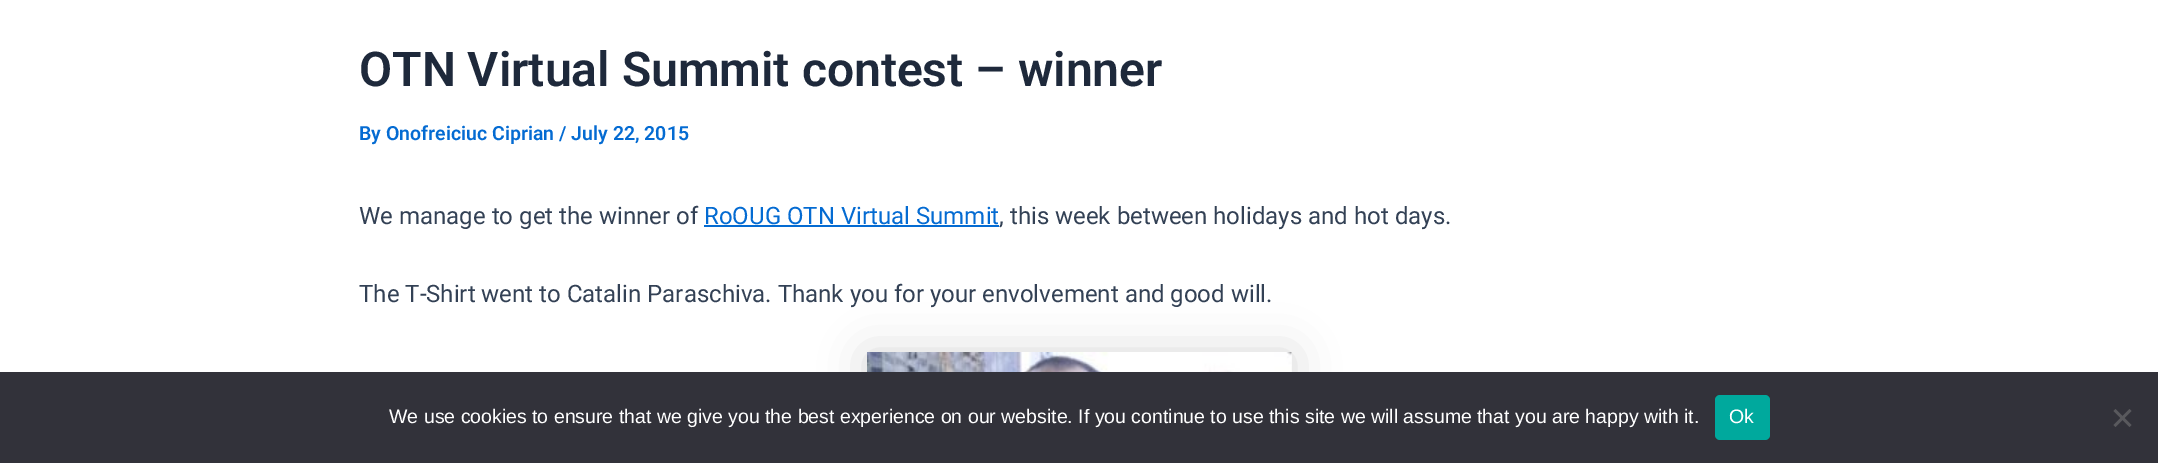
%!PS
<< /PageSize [2158 463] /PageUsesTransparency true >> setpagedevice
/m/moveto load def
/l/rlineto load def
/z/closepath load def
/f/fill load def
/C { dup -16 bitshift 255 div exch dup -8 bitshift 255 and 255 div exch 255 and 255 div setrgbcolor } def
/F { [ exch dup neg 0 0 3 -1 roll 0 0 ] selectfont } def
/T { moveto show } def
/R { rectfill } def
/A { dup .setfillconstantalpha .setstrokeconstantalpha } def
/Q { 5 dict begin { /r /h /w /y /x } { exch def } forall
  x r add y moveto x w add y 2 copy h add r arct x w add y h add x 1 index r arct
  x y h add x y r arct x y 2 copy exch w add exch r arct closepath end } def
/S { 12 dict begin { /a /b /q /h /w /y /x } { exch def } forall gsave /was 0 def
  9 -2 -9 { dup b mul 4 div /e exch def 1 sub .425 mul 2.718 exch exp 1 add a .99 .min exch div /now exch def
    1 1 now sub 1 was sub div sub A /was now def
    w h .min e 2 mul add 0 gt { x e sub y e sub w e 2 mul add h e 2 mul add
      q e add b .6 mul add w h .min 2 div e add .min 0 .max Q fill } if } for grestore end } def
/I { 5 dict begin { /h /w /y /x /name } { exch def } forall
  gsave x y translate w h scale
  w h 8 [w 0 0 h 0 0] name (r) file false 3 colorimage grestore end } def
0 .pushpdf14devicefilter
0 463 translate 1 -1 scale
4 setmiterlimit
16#FFFFFF C
0 0 2158 463 R
/Roboto-SemiBold 48 F
16#1E293B C
(OTN Virtual Summit contest – winner) 359 86 T
/Roboto-SemiBold 19.5 F
16#046BD2 C
(By Onofreiciuc Ciprian / July 22, 2015) 359 140 T
/Roboto-Regular 24 F
16#334155 C
(We manage to get the winner of) 359 224 T
16#046BD2 C
(RoOUG OTN Virtual Summit) 704 224 T
704 225 295 2 R
16#334155 C
(, this week between holidays and hot days.) 999 224 T
16#000000 C
867 353 425 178 0 22.5 .15 S
16#334155 C
(The T-Shirt went to Catalin Paraschiva. Thank you for your envolvement and good will.) 359 302 T
(1.rgb) 867 352 425 20 I
16#32323A C
0 372 2158 91 R
/LiberationSans-Regular 19.5 F
16#FFFFFF C
(We use cookies to ensure that we give you the best experience on our website. If you continue to use this site we will assume that you are happy with it.) 389 423 T
16#00A99D C
1715 395 55 45 5 Q f
16#FFFFFF C
(Ok) 1729 423 T
16#59595D C
2129.5 409 m 2 2 l -16 16 l -2 -2 l z f
2113.5 411 m 2 -2 l 16 16 l -2 2 l z f
.poppdf14devicefilter showpage
